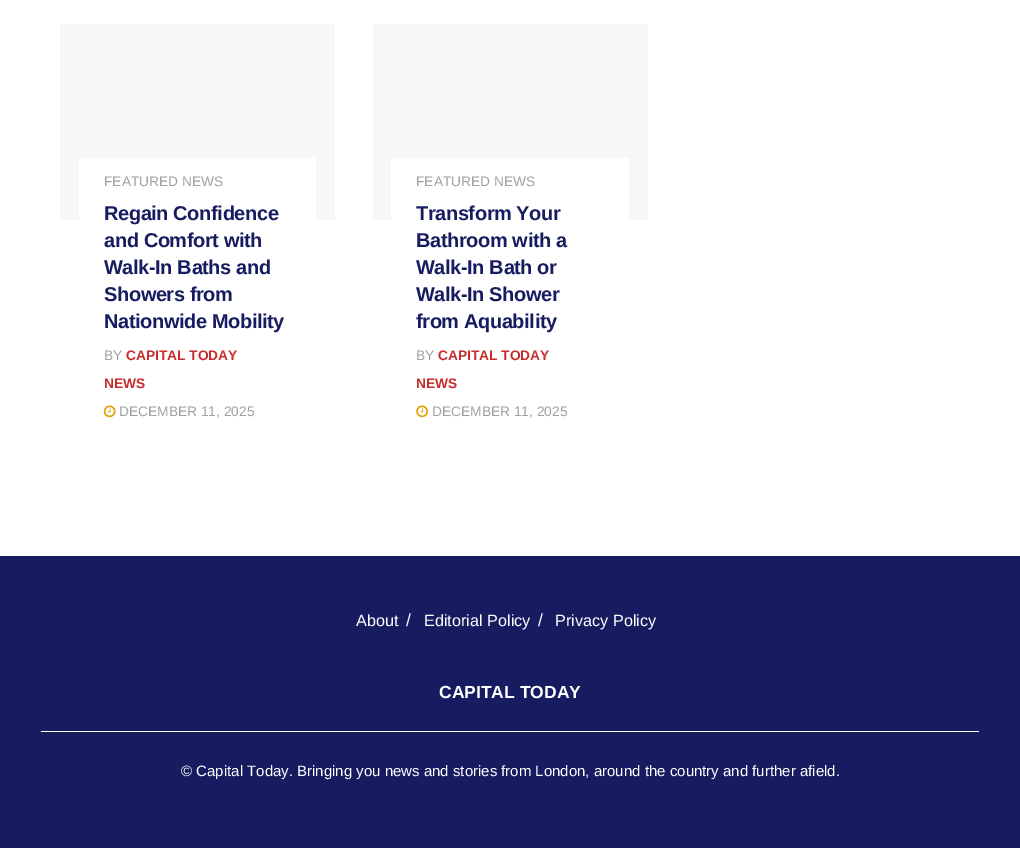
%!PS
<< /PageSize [1020 848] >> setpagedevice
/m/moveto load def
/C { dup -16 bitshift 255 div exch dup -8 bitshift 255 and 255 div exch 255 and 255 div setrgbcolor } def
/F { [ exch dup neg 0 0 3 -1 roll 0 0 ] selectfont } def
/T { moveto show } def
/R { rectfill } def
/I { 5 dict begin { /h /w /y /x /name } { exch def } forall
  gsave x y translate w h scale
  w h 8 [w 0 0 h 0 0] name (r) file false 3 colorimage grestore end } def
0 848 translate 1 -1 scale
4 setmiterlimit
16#FFFFFF C
0 0 1020 848 R
16#F7F7F7 C
60 24 275 196 R
16#FFFFFF C
79 158 237 62 R
/LiberationSans-Regular 13.75 F
16#A0A0A0 C
(FEATURED NEWS) 104 186 T
/LiberationSans-Bold 20 F
16#171C61 C
104 220 m -.4 0 (Regain Confidence) ashow
104 247 m -.4 0 (and Comfort with) ashow
104 274 m -.4 0 (Walk-In Baths and) ashow
104 301 m -.4 0 (Showers from) ashow
104 328 m -.4 0 (Nationwide Mobility) ashow
/LiberationSans-Regular 13.75 F
16#A0A0A0 C
(BY) 104 360 T
/LiberationSans-Bold 13.75 F
16#C62D2D C
(CAPITAL TODAY) 126 360 T
(NEWS) 104 388 T
(1.rgb) 103 405 13 13 I
/LiberationSans-Regular 13.75 F
16#A0A0A0 C
(DECEMBER 11, 2025) 119 416 T
16#F7F7F7 C
373 24 275 196 R
16#FFFFFF C
391 158 238 62 R
16#A0A0A0 C
(FEATURED NEWS) 416 186 T
/LiberationSans-Bold 20 F
16#171C61 C
416 220 m -.4 0 (Transform Your) ashow
416 247 m -.4 0 (Bathroom with a) ashow
416 274 m -.4 0 (Walk-In Bath or) ashow
416 301 m -.4 0 (Walk-In Shower) ashow
416 328 m -.4 0 (from Aquability) ashow
/LiberationSans-Regular 13.75 F
16#A0A0A0 C
(BY) 416 360 T
/LiberationSans-Bold 13.75 F
16#C62D2D C
(CAPITAL TODAY) 438 360 T
(NEWS) 416 388 T
(2.rgb) 416 405 12 13 I
/LiberationSans-Regular 13.75 F
16#A0A0A0 C
(DECEMBER 11, 2025) 432 416 T
16#171C61 C
0 556 1020 292 R
/LiberationSans-Regular 16.25 F
16#FFFFFF C
(About) 356 626 T
/LiberationSans-Regular 17.5 F
(/) 406 626 T
/LiberationSans-Regular 16.25 F
(Editorial Policy) 424 626 T
/LiberationSans-Regular 17.5 F
(/) 538 626 T
/LiberationSans-Regular 16.25 F
(Privacy Policy) 555 626 T
/LiberationSans-Bold 17.5 F
(CAPITAL TODAY) 439 698 T
41 731 938 1 R
/LiberationSans-Regular 15 F
(© Capital Today. Bringing you news and stories from London, around the country and further afield.) 181 776 T
showpage
